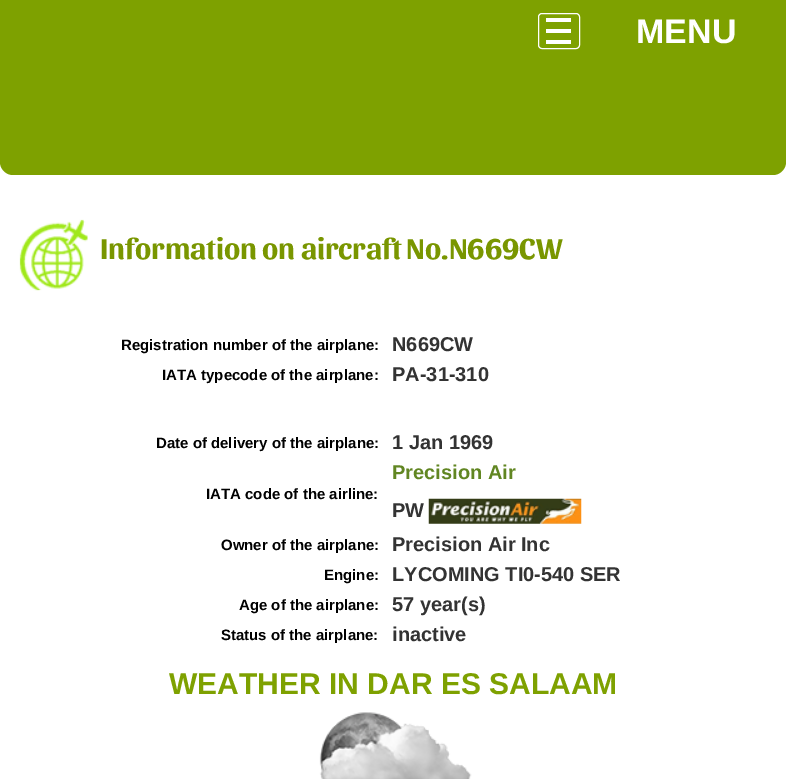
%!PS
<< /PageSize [786 779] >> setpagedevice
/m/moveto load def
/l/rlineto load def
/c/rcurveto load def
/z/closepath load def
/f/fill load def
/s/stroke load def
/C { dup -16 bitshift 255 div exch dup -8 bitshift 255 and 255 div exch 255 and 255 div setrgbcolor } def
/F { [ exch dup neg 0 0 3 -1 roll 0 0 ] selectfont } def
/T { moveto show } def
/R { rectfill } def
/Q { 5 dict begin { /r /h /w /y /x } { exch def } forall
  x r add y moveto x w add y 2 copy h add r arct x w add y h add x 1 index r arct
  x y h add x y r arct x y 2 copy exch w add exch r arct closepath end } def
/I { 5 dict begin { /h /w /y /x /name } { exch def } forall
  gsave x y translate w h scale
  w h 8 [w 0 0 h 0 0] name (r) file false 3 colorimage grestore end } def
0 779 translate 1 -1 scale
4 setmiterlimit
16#FFFFFF C
0 0 786 779 R
16#7EA100 C
0 0 786 63 R
16#FFFFFF C
538.5 13.5 41 35 3.5 Q s
546 18 25 4 R
546 29 25 4 R
546 40 25 4 R
/LiberationSans-Bold 34 F
(MENU) 636 43 T
16#7EA100 C
0 63 m 786 0 l 0 99 l 0 7 -6 13 -13 13 c -760 0 l -7 0 -13 -6 -13 -13 c z f
(1.rgb) 19 219 69 72 I
/Sansita-Bold 30 F
16#799600 C
(Information on aircraft No.N669CW) 100 259 T
/LiberationSans-Bold 15 F
16#000000 C
(Registration number of the airplane:) 121 350 T
/LiberationSans-Bold 20 F
16#333333 C
(N669CW) 392 351 T
/LiberationSans-Bold 15 F
16#000000 C
(IATA typecode of the airplane:) 162 380 T
/LiberationSans-Bold 20 F
16#333333 C
(PA-31-310) 392 381 T
/LiberationSans-Bold 15 F
16#000000 C
(Date of delivery of the airplane:) 156 448 T
/LiberationSans-Bold 20 F
16#333333 C
(1 Jan 1969) 392 449 T
/LiberationSans-Bold 15 F
16#000000 C
(IATA code of the airline:) 206 499 T
/LiberationSans-Bold 20 F
16#618622 C
(Precision Air) 392 479 T
16#333333 C
(PW) 392 517 T
(2.rgb) 428 498 154 26 I
/LiberationSans-Bold 15 F
16#000000 C
(Owner of the airplane:) 221 550 T
/LiberationSans-Bold 20 F
16#333333 C
(Precision Air Inc) 392 551 T
/LiberationSans-Bold 15 F
16#000000 C
(Engine:) 324 580 T
/LiberationSans-Bold 20 F
16#333333 C
(LYCOMING TI0-540 SER) 392 581 T
/LiberationSans-Bold 15 F
16#000000 C
(Age of the airplane:) 239 610 T
/LiberationSans-Bold 20 F
16#333333 C
(57 year\(s\)) 392 611 T
/LiberationSans-Bold 15 F
16#000000 C
(Status of the airplane:) 221 640 T
/LiberationSans-Bold 20 F
16#333333 C
(inactive) 392 641 T
/LiberationSans-Bold 30 F
16#7EA100 C
(WEATHER IN DAR ES SALAAM) 169 694 T
(3.rgb) 319 712 153 67 I
showpage
